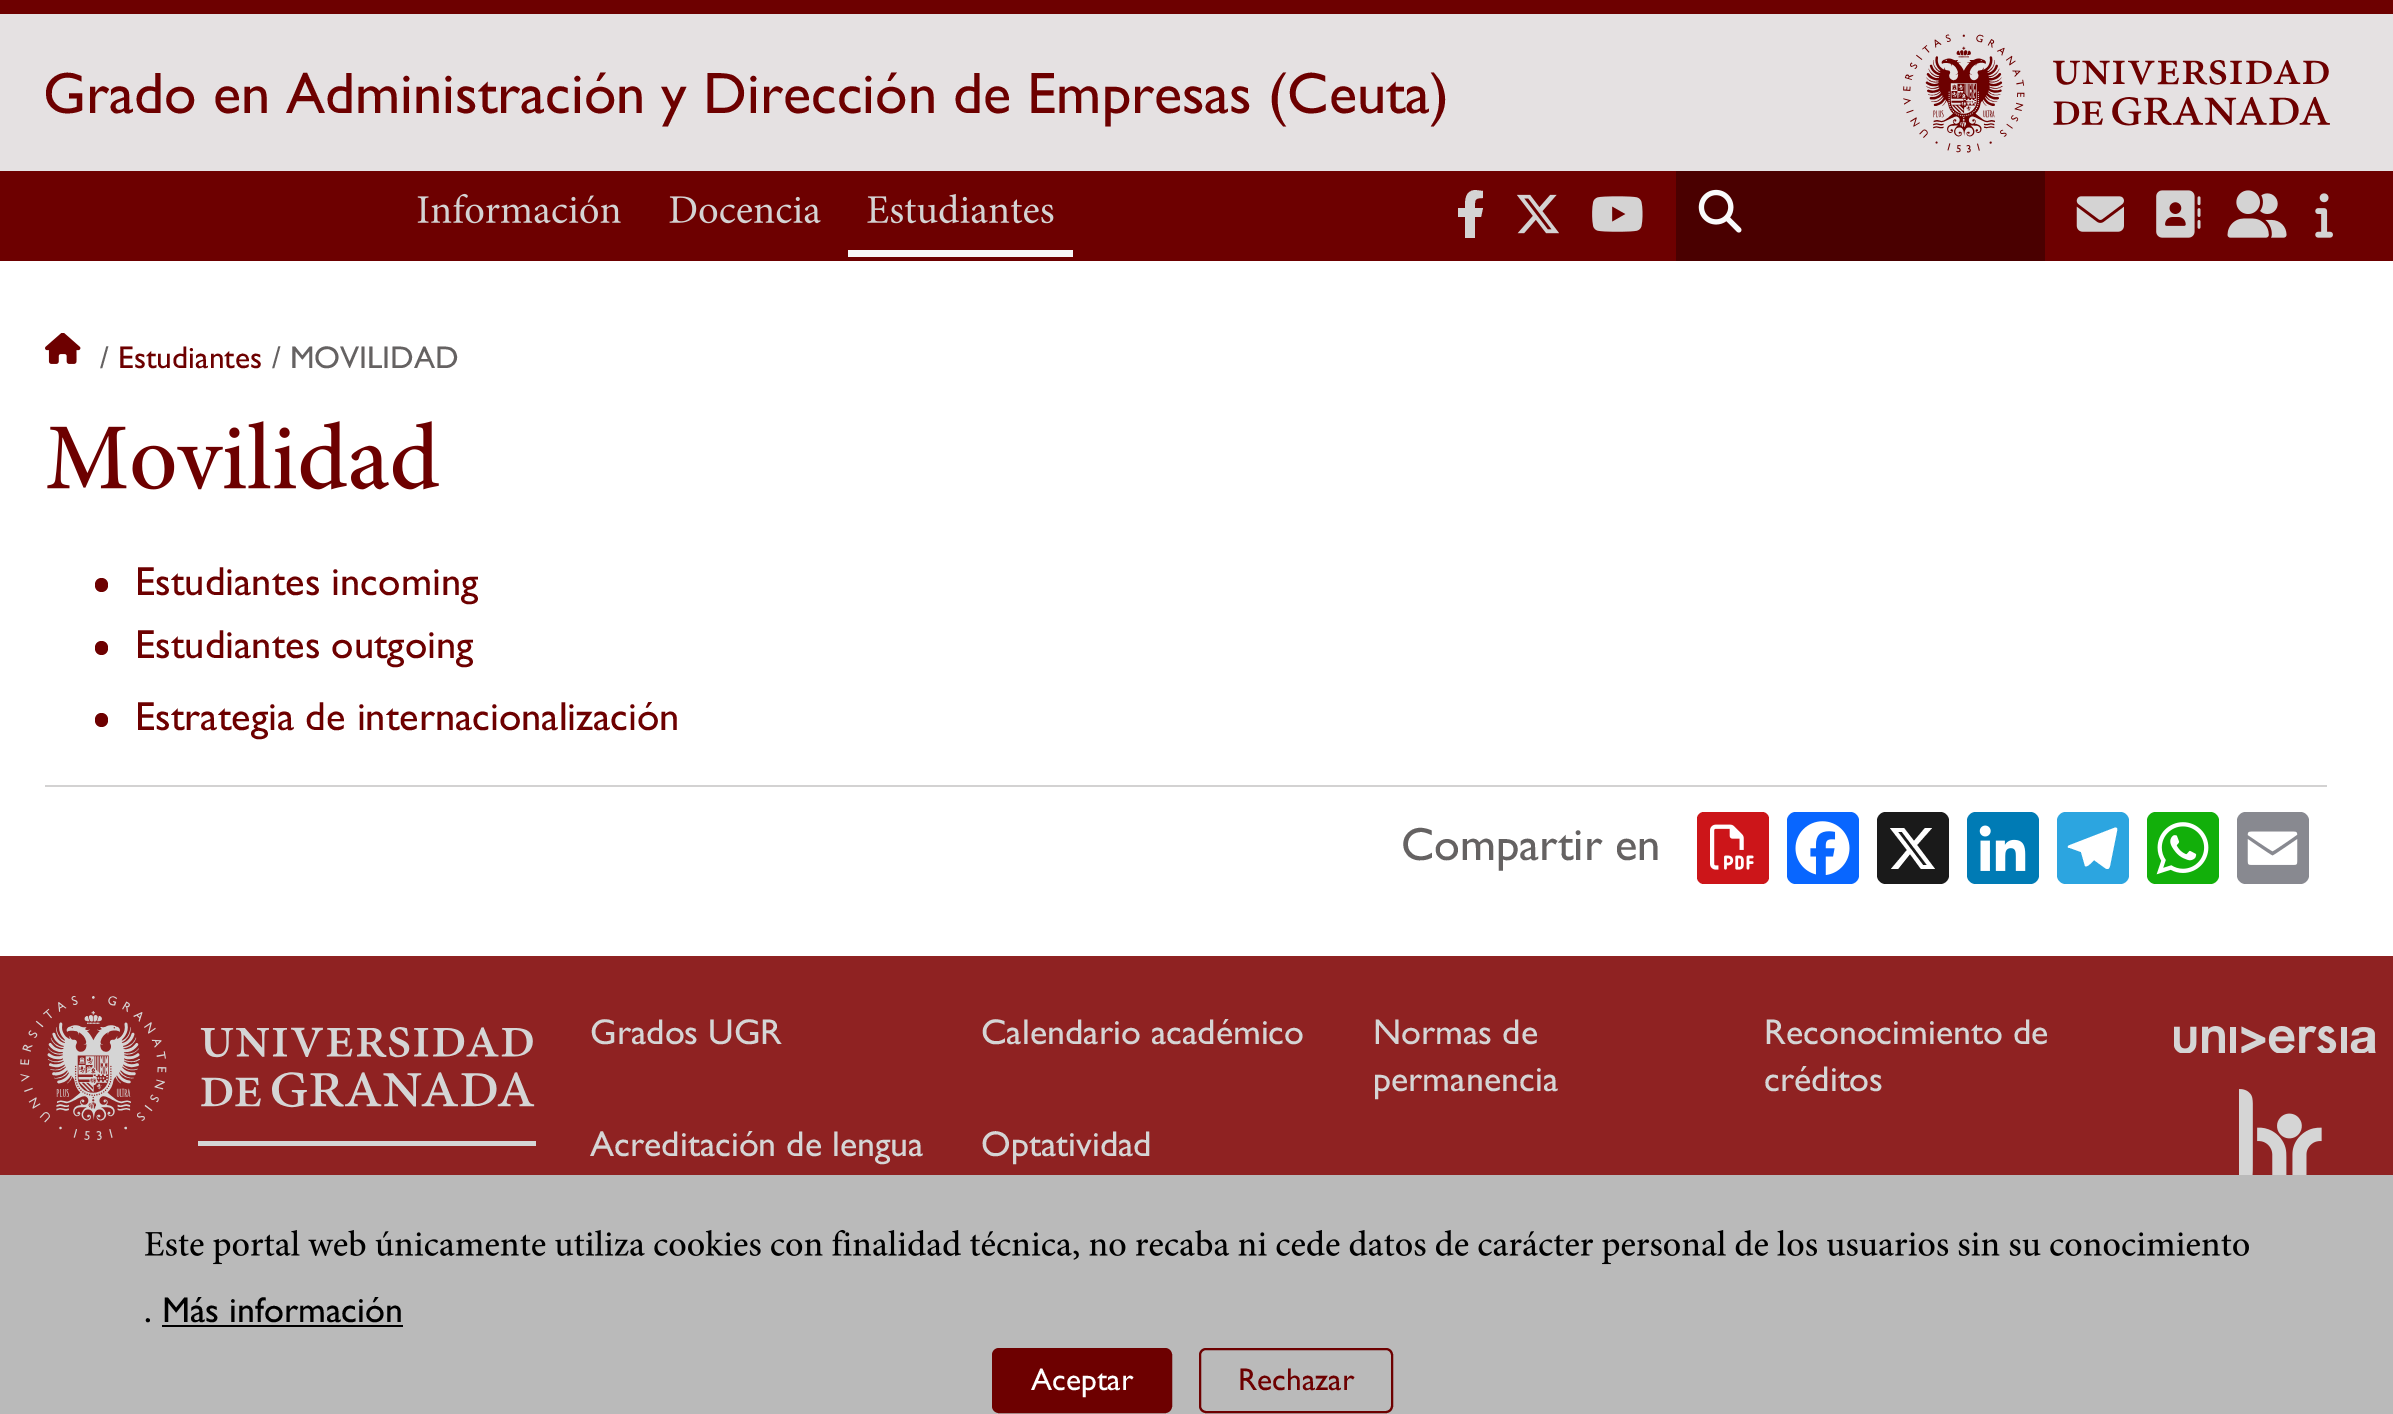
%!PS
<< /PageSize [2393 1414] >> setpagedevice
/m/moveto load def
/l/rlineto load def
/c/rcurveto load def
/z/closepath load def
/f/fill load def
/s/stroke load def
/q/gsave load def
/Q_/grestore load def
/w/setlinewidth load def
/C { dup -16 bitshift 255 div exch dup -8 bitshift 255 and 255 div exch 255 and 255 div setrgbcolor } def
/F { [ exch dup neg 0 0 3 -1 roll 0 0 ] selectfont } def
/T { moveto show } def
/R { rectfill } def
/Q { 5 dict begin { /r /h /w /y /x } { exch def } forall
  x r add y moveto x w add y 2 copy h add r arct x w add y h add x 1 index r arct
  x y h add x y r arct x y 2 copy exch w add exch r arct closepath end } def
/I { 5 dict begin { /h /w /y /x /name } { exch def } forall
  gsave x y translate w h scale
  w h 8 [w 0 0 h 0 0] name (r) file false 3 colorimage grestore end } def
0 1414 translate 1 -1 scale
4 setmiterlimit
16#FFFFFF C
0 0 2393 1414 R
16#6D0000 C
0 0 2393 14 R
0 171 2393 90 R
16#E5E1E2 C
0 14 2393 157 R
/GillSans-Regular 58.5 F
16#6D0000 C
(Grado en Administración y Dirección de Empresas \(Ceuta\)) 43 113 T
(1.rgb) 1903 34 427 119 I
(2.rgb) 417 193 204 31 I
(3.rgb) 669 196 152 28 I
(4.rgb) 867 194 187 30 I
16#F7F7F7 C
848 250 225 7 R
16#D4D3D3 C
1481 217 m 2 -9 l -8 0 l 0 -8 -1 -10 8 -10 c 0 -7 l -8 -1 l -10 1 -10 10 -10 18 c -7 0 l 0 9 l 7 0 l 0 21 l 10 0 l 0 -21 l z f
(5.rgb) 1516 194 43 40 I
(6.rgb) 1592 196 51 36 I
16#4A0000 C
1676 171 369 90 R
(7.rgb) 1698 189 44 44 I
(8.rgb) 2076 196 48 36 I
(9.rgb) 2156 190 45 48 I
(10.rgb) 2227 190 60 48 I
(11.rgb) 2315 193 18 45 I
(12.rgb) 45 333 36 31 I
/GillSans-Regular 31.5 F
16#656262 C
(/) 100 368 T
16#6D0000 C
(Estudiantes) 118 368 T
16#656262 C
(/ MOVILIDAD) 272 368 T
(13.rgb) 47 421 392 69 I
16#6D0000 C
95 578 13 14 6.5 Q f
/GillSans-Regular 40.5 F
(Estudiantes incoming) 135 595 T
95 641 13 14 6.5 Q f
(Estudiantes outgoing) 135 658 T
95 713 13 14 6.5 Q f
(Estrategia de internacionalización) 135 730 T
16#D3D2D2 C
45 785 2282 2 R
/GillSans-Regular 46.75 F
16#656262 C
(Compartir en) 1401 860 T
16#CC1519 C
1697 812 72 72 7 Q f
(14.rgb) 1710 824 44 46 I
16#0866FF C
1787 812 72 72 9 Q f
(15.rgb) 1795 821 55 54 I
16#1A1A1A C
1877 812 72 72 9 Q f
16#FFFFFF C
1925 828 m 7 0 l -15 17 l 18 24 l -14 0 l -11 -15 l -12 15 l -7 0 l 16 -19 l -17 -22 l 14 0 l 10 13 l z 1923 865 m 4 0 l -25 -33 l -4 0 l z f
16#007BB5 C
1967 812 72 72 9 Q f
(16.rgb) 1979 825 47 46 I
16#2CA5E0 C
2057 812 72 72 9 Q f
16#FFFFFF C
2114 828 m -44 17 l -3 1 -3 3 0 3 c 11 4 l 4 14 l 2 2 8 -5 9 -6 c 11 8 l 3 2 4 1 5 -2 c 7 -35 l 1 -3 -1 -4 -3 -3 c z f
16#12AF0A C
2147 812 72 72 9 Q f
(17.rgb) 2156 822 53 53 I
16#888990 C
2237 812 72 72 9 Q f
(18.rgb) 2247 831 51 34 I
16#8F2222 C
0 956 2393 219 R
(19.rgb) 20 996 515 144 I
16#D5D5D5 C
198 1141 338 5 R
/GillSans-Regular 36 F
(Grados UGR) 590 1044 T
(Calendario académico) 981 1044 T
(Normas de) 1373 1044 T
(permanencia) 1373 1091 T
(Reconocimiento de) 1764 1044 T
(créditos) 1764 1091 T
(Acreditación de lengua) 590 1156 T
(Optatividad) 981 1156 T
(20.rgb) 2174 1026 202 27 I
(21.rgb) 2239 1089 83 86 I
16#BABABA C
0 1175 2393 239 R
(22.rgb) 145 1229 2104 36 I
16#000000 C
(. Más información) 144 1322 T
162 1325 241 2 R
16#6D0000 C
993 1349 178 63 6 Q q f Q_
2 w
s
/GillSans-Regular 31.5 F
16#FEFFFF C
(Aceptar) 1031 1390 T
16#6D0000 C
1200 1349 192 63 6 Q s
(Rechazar) 1238 1390 T
showpage
